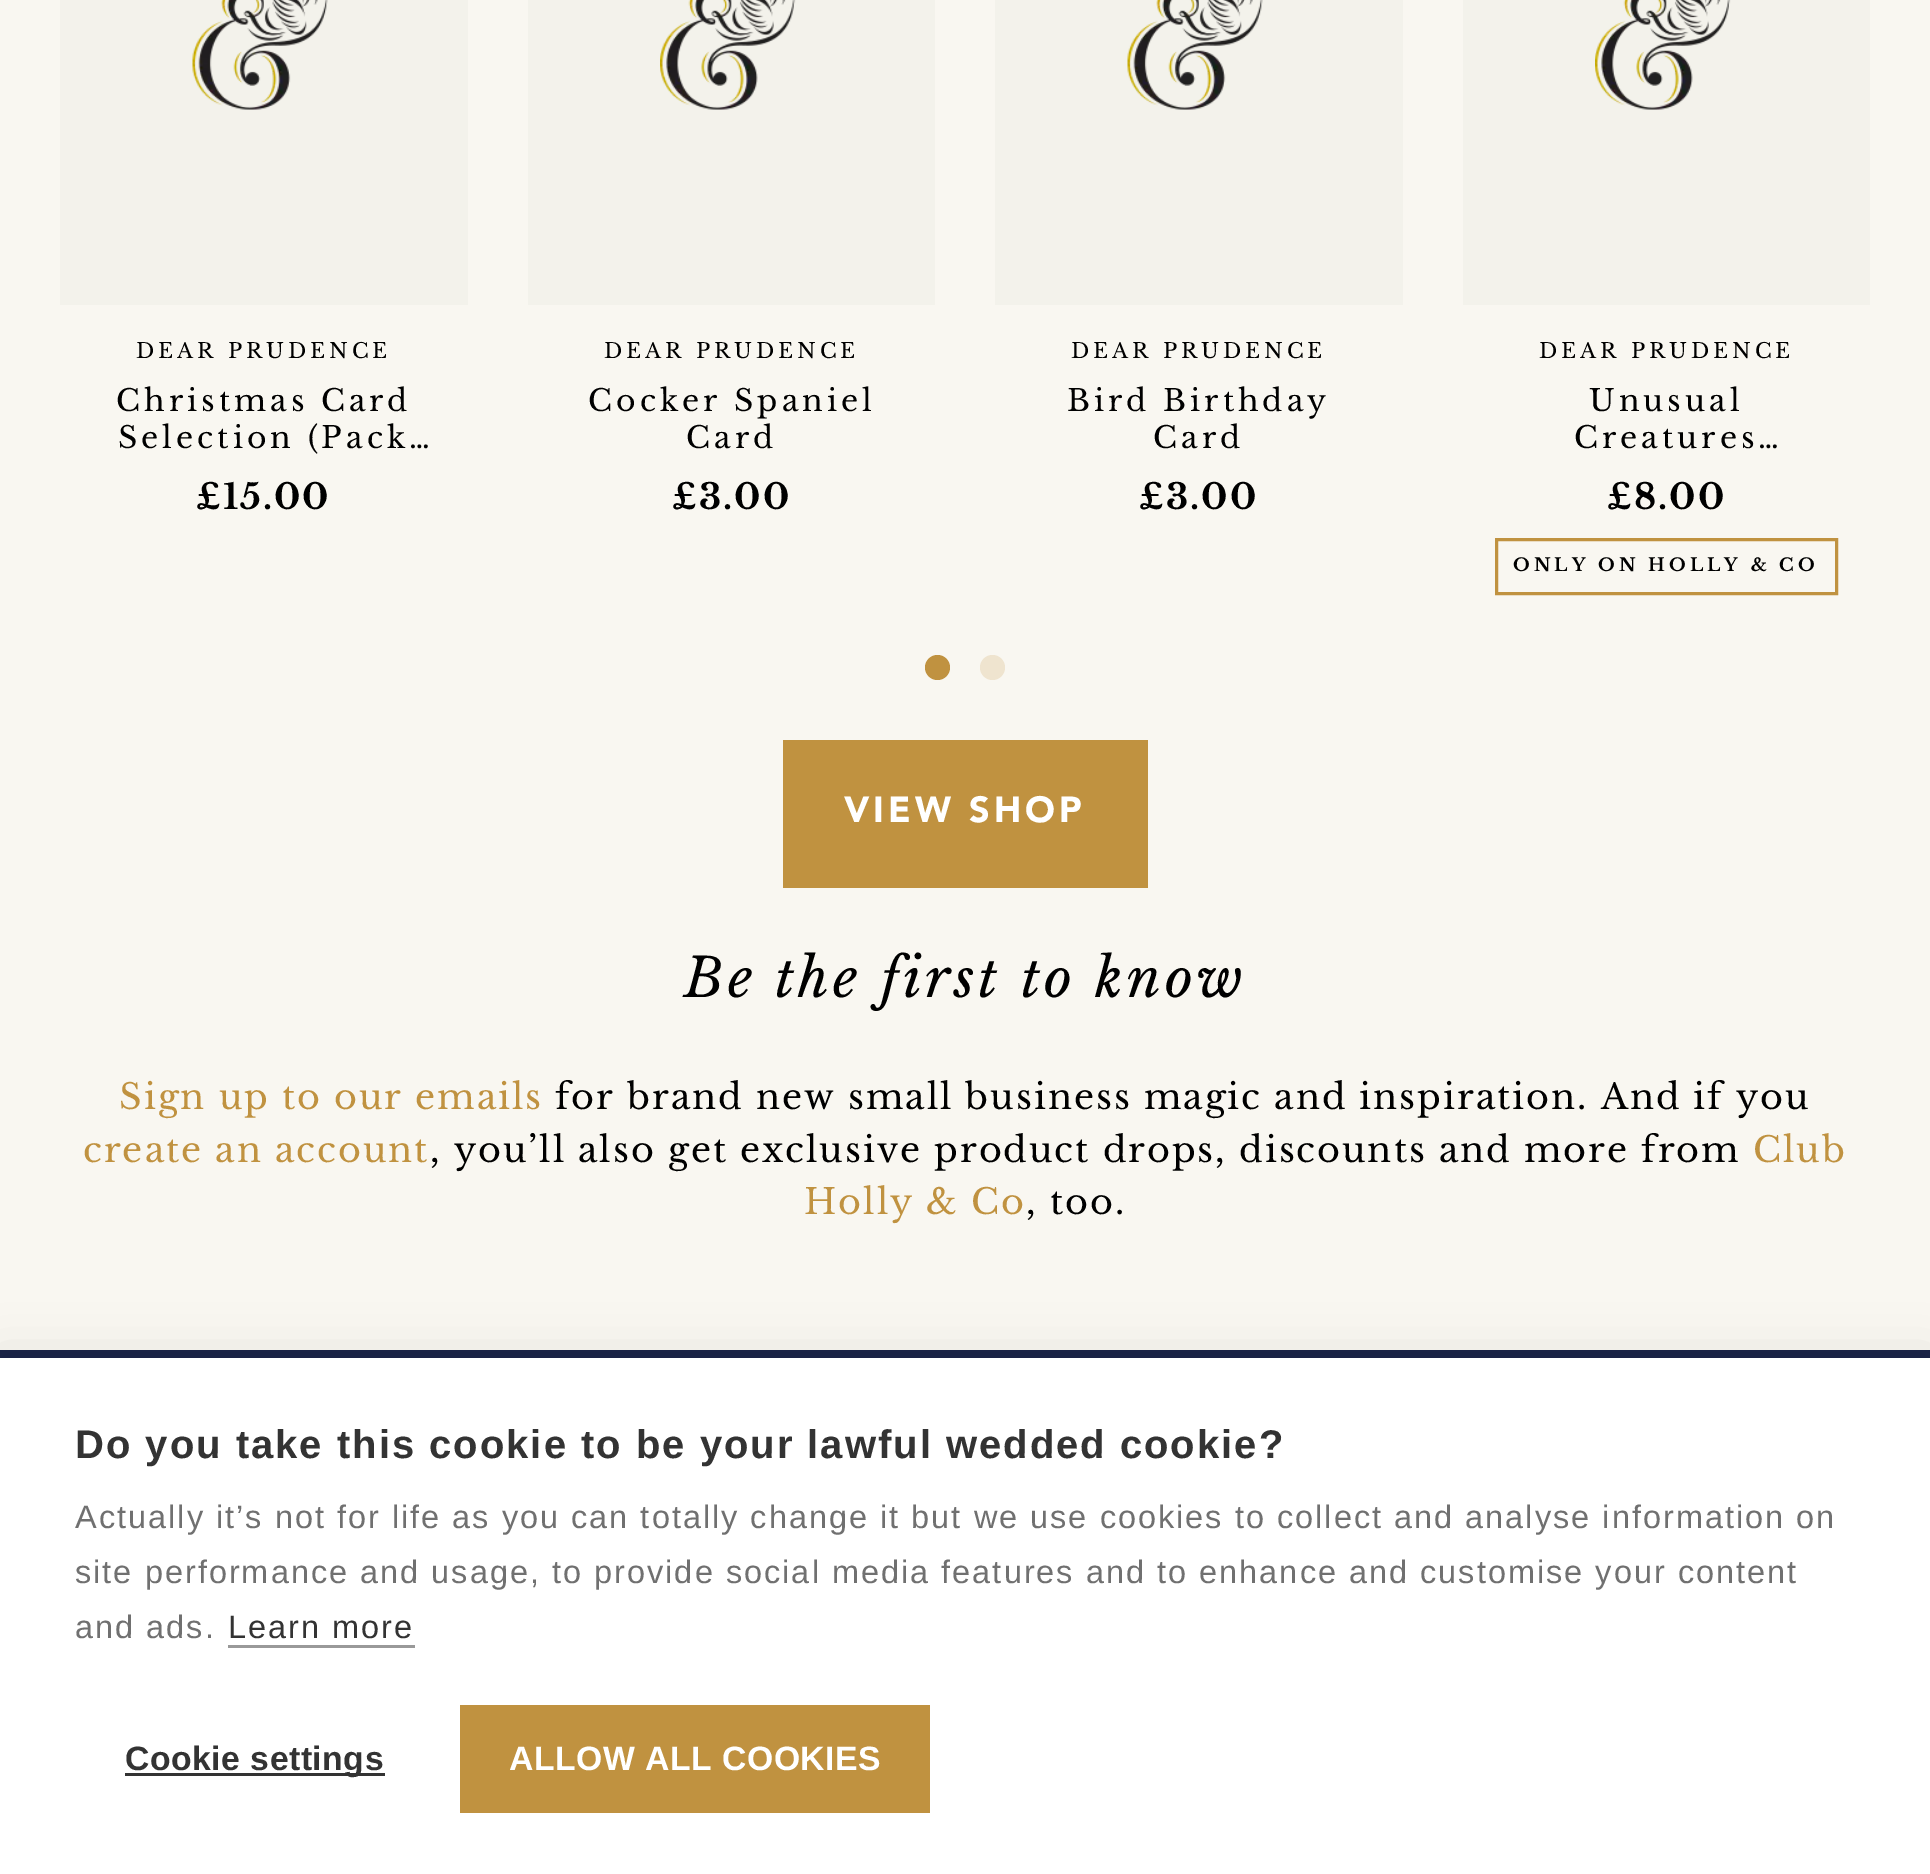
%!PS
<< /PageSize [1930 1874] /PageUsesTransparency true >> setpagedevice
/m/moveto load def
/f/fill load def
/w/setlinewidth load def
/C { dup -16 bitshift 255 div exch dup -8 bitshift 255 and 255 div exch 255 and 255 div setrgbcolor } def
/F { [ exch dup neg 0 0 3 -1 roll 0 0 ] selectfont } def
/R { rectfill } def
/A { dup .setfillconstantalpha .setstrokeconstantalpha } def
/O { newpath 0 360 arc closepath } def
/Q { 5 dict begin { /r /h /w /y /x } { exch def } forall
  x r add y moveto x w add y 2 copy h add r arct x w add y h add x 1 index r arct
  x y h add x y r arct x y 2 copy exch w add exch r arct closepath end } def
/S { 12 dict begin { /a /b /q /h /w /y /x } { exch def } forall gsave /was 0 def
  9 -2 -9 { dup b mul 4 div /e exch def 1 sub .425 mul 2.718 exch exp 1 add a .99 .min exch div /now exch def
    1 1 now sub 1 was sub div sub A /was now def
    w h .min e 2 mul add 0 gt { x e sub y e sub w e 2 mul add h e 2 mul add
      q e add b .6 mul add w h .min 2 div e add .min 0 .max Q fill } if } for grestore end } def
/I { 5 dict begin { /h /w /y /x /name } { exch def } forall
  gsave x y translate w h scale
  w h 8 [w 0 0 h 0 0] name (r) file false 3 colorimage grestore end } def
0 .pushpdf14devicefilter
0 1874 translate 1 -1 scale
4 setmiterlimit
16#F9F7F1 C
0 0 1930 1874 R
16#F3F2EB C
60 0 408 305 R
(1.rgb) 192 0 136 110 I
/LibreBaskerville-Regular 20.7 F
16#000000 C
136 358 m 4 0 (DEAR PRUDENCE) ashow
/LibreBaskerville-Regular 29.9 F
116 411 m 4 0 (Christmas Card) ashow
118 448 m 4 0 (Selection \(Pack…) ashow
/LibreBaskerville-Bold 35 F
196 509 m 2 0 (£15.00) ashow
16#F3F2EB C
528 0 407 305 R
(2.rgb) 660 0 136 110 I
/LibreBaskerville-Regular 20.7 F
16#000000 C
604 358 m 4 0 (DEAR PRUDENCE) ashow
/LibreBaskerville-Regular 29.9 F
588 411 m 4 0 (Cocker Spaniel) ashow
686 448 m 4 0 (Card) ashow
/LibreBaskerville-Bold 35 F
672 509 m 2 0 (£3.00) ashow
16#F3F2EB C
995 0 408 305 R
(3.rgb) 1127 0 136 110 I
/LibreBaskerville-Regular 20.7 F
16#000000 C
1071 358 m 4 0 (DEAR PRUDENCE) ashow
/LibreBaskerville-Regular 29.9 F
1067 411 m 4 0 (Bird Birthday) ashow
1153 448 m 4 0 (Card) ashow
/LibreBaskerville-Bold 35 F
1139 509 m 2 0 (£3.00) ashow
16#F3F2EB C
1463 0 407 305 R
(4.rgb) 1595 0 136 110 I
/LibreBaskerville-Regular 20.7 F
16#000000 C
1539 358 m 4 0 (DEAR PRUDENCE) ashow
/LibreBaskerville-Regular 29.9 F
1589 411 m 4 0 (Unusual) ashow
1574 448 m 4 0 (Creatures…) ashow
/LibreBaskerville-Bold 35 F
1607 509 m 2 0 (£8.00) ashow
16#C09240 C
3 w
1496.5 539.5 340 54 rectstroke
/LibreBaskerville-Bold 17.75 F
16#000000 C
1513 571 m 4 0 (ONLY ON HOLLY & CO) ashow
16#C09240 C
937.5 667.5 12.5 O f
16#EFE4CF C
992.5 667.5 12.5 O f
16#C09240 C
783 740 365 148 R
/Avenir-Black 36 F
16#FFFFFF C
844 822 m 4 0 (VIEW SHOP) ashow
/LibreBaskerville-Italic 53.75 F
16#000000 C
684 997 m 4 0 (Be the first to know) ashow
/LibreBaskerville-Regular 35 F
16#C09240 C
119 1109 m 2 0 (Sign up to our emails) ashow
16#000000 C
555 1109 m 2 0 (for brand new small business magic and inspiration. And if you) ashow
16#C09240 C
83 1162 m 2 0 (create an account) ashow
16#000000 C
430 1162 m 2 0 (, you’ll also get exclusive product drops, discounts and more from) ashow
16#C09240 C
1753 1162 m 2 0 (Club) ashow
804 1214 m 2 0 (Holly & Co) ashow
16#000000 C
1026 1214 m 2 0 (, too.) ashow
16#1A2448 C
0 1350 1930 8 R
16#000000 C
0 1358 1930 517 0 25 .1 S
16#FFFFFF C
0 1358 1930 516 R
/LiberationSans-Bold 40 F
16#333333 C
75 1458 m 2 0 (Do you take this cookie to be your lawful wedded cookie?) ashow
/LiberationSans-Regular 32.5 F
16#707070 C
75 1528 m 2 0 (Actually it’s not for life as you can totally change it but we use cookies to collect and analyse information on) ashow
75 1583 m 2 0 (site performance and usage, to provide social media features and to enhance and customise your content) ashow
75 1638 m 2 0 (and ads.) ashow
16#333333 C
228 1638 m 2 0 (Learn more) ashow
16#999999 C
228 1645 187 3 R
16#333333 C
125 1773 260 3 R
/LiberationSans-Bold 33.75 F
125 1770 m .5 0 (Cookie settings) ashow
16#C09240 C
460 1705 470 108 R
16#FFFFFF C
509 1770 m .5 0 (ALLOW ALL COOKIES) ashow
.poppdf14devicefilter showpage
